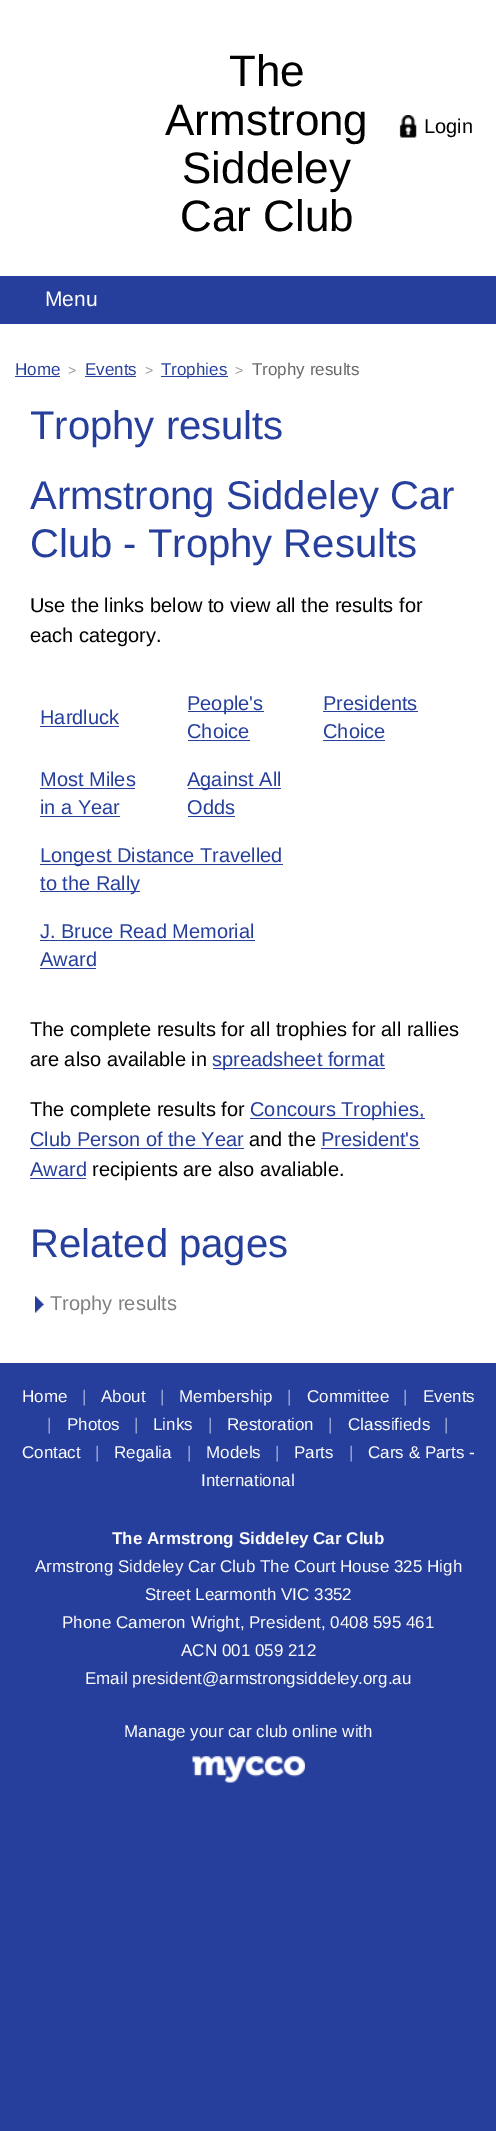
%!PS
<< /PageSize [496 2131] >> setpagedevice
/C { dup -16 bitshift 255 div exch dup -8 bitshift 255 and 255 div exch 255 and 255 div setrgbcolor } def
/F { [ exch dup neg 0 0 3 -1 roll 0 0 ] selectfont } def
/T { moveto show } def
/R { rectfill } def
/I { 5 dict begin { /h /w /y /x /name } { exch def } forall
  gsave x y translate w h scale
  w h 8 [w 0 0 h 0 0] name (r) file false 3 colorimage grestore end } def
0 2131 translate 1 -1 scale
4 setmiterlimit
16#273F9C C
0 0 496 2131 R
16#FFFFFF C
0 0 496 276 R
/LiberationSans-Regular 44 F
16#000000 C
(The) 229 86 T
(Armstrong) 165 135 T
(Siddeley) 182 183 T
(Car Club) 180 231 T
(1.rgb) 399 115 18 23 I
/LiberationSans-Regular 20 F
(Login) 424 133 T
/LiberationSans-Regular 21 F
16#FFFFFF C
(Menu) 45 306 T
0 324 496 1039 R
/LiberationSans-Regular 17 F
16#273F9C C
(Home) 15 375 T
15 376 45 1 R
/LiberationSans-Regular 14 F
16#999999 C
(>) 68 375 T
/LiberationSans-Regular 17 F
16#273F9C C
(Events) 85 375 T
85 376 51 1 R
/LiberationSans-Regular 14 F
16#999999 C
(>) 145 375 T
16#273F9C C
161 376 67 1 R
/LiberationSans-Regular 17 F
(Trophies) 161 375 T
/LiberationSans-Regular 14 F
16#999999 C
(>) 235 375 T
/LiberationSans-Regular 17 F
16#666666 C
(Trophy results) 252 375 T
/LiberationSans-Regular 40 F
16#273F9C C
(Trophy results) 30 439 T
(Armstrong Siddeley Car) 30 509 T
(Club - Trophy Results) 30 557 T
/LiberationSans-Regular 20 F
16#000000 C
(Use the links below to view all the results for) 30 612 T
(each category.) 30 642 T
16#273F9C C
(Hardluck) 40 724 T
40 726 79 1 R
188 711 76 1 R
(People's) 187 710 T
(Choice) 187 738 T
188 740 62 1 R
(Presidents) 323 710 T
323 711 95 1 R
(Choice) 323 738 T
323 740 62 1 R
(Most Miles) 40 786 T
40 788 95 1 R
(in a Year) 40 814 T
40 816 80 1 R
188 788 93 1 R
(Against All) 187 786 T
(Odds) 187 814 T
188 816 47 1 R
40 864 243 1 R
(Longest Distance Travelled) 40 862 T
40 891 100 1 R
(to the Rally) 40 890 T
(J. Bruce Read Memorial) 40 938 T
40 940 215 1 R
(Award) 40 966 T
40 968 56 1 R
16#000000 C
(The complete results for all trophies for all rallies) 30 1036 T
(are also available in) 30 1066 T
16#273F9C C
213 1068 172 1 R
(spreadsheet format) 212 1066 T
16#000000 C
(The complete results for) 30 1116 T
16#273F9C C
250 1118 175 1 R
(Concours Trophies,) 250 1116 T
(Club Person of the Year) 30 1146 T
30 1148 214 1 R
16#000000 C
(and the) 249 1146 T
16#273F9C C
(President's) 321 1146 T
321 1148 99 1 R
(Award) 30 1176 T
30 1178 56 1 R
16#000000 C
(recipients are also avaliable.) 92 1176 T
/LiberationSans-Regular 40 F
16#273F9C C
(Related pages) 30 1257 T
35 1296 9 17 R
(2.rgb) 35 1294 15 22 I
/LiberationSans-Regular 20 F
16#808080 C
(Trophy results) 50 1310 T
/LiberationSans-Regular 17 F
16#FFFFFF C
(Home) 22 1402 T
16#939FCE C
(|) 82 1402 T
16#FFFFFF C
(About) 101 1402 T
16#939FCE C
(|) 160 1402 T
16#FFFFFF C
(Membership) 179 1402 T
16#939FCE C
(|) 287 1402 T
16#FFFFFF C
(Committee) 307 1402 T
16#939FCE C
(|) 403 1402 T
16#FFFFFF C
(Events) 423 1402 T
16#939FCE C
(|) 47 1430 T
16#FFFFFF C
(Photos) 67 1430 T
16#939FCE C
(|) 134 1430 T
16#FFFFFF C
(Links) 153 1430 T
16#939FCE C
(|) 208 1430 T
16#FFFFFF C
(Restoration) 227 1430 T
16#939FCE C
(|) 328 1430 T
16#FFFFFF C
(Classifieds) 348 1430 T
16#939FCE C
(|) 444 1430 T
16#FFFFFF C
(Contact) 22 1458 T
16#939FCE C
(|) 95 1458 T
16#FFFFFF C
(Regalia) 114 1458 T
16#939FCE C
(|) 187 1458 T
16#FFFFFF C
(Models) 206 1458 T
16#939FCE C
(|) 275 1458 T
16#FFFFFF C
(Parts) 294 1458 T
16#939FCE C
(|) 349 1458 T
16#FFFFFF C
(Cars & Parts -) 368 1458 T
(International) 201 1486 T
/LiberationSans-Bold 17 F
(The Armstrong Siddeley Car Club) 112 1544 T
/LiberationSans-Regular 17 F
(Armstrong Siddeley Car Club The Court House 325 High) 35 1572 T
(Street Learmonth VIC 3352) 145 1600 T
(Phone Cameron Wright, President, 0408 595 461) 62 1628 T
(ACN 001 059 212) 181 1656 T
(Email president@armstrongsiddeley.org.au) 85 1684 T
(Manage your car club online with) 124 1737 T
(3.rgb) 192 1756 113 27 I
showpage
